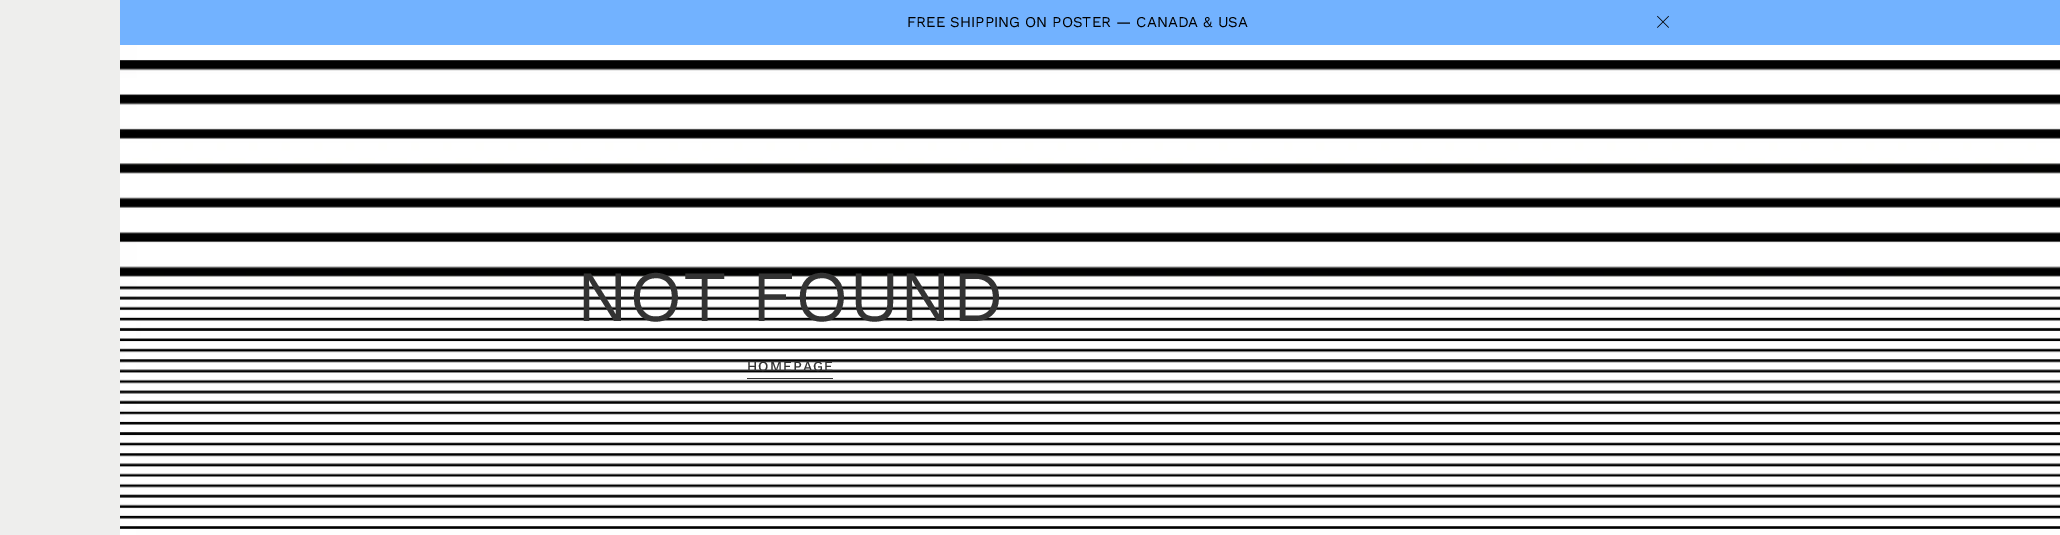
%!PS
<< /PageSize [2060 535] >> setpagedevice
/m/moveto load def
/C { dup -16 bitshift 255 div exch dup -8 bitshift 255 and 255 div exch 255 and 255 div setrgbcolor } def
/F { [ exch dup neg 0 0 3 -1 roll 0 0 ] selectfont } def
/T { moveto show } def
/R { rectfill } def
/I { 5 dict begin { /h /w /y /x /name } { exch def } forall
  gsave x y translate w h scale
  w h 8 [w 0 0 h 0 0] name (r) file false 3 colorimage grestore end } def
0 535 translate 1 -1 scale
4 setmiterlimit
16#EEEEED C
0 0 2060 535 R
16#72B2FF C
120 0 1940 45 R
/WorkSans-Regular 15 F
16#000000 C
(FREE SHIPPING ON POSTER — CANADA & USA) 907 27 T
(1.rgb) 1657 15 12 13 I
(2.rgb) 120 45 1940 490 I
/WorkSans-Regular 72 F
16#333333 C
(NOT FOUND) 576 321 T
747 378 86 1 R
/WorkSans-Medium 14 F
747 371 m 1 0 (HOMEPAGE) ashow
showpage
